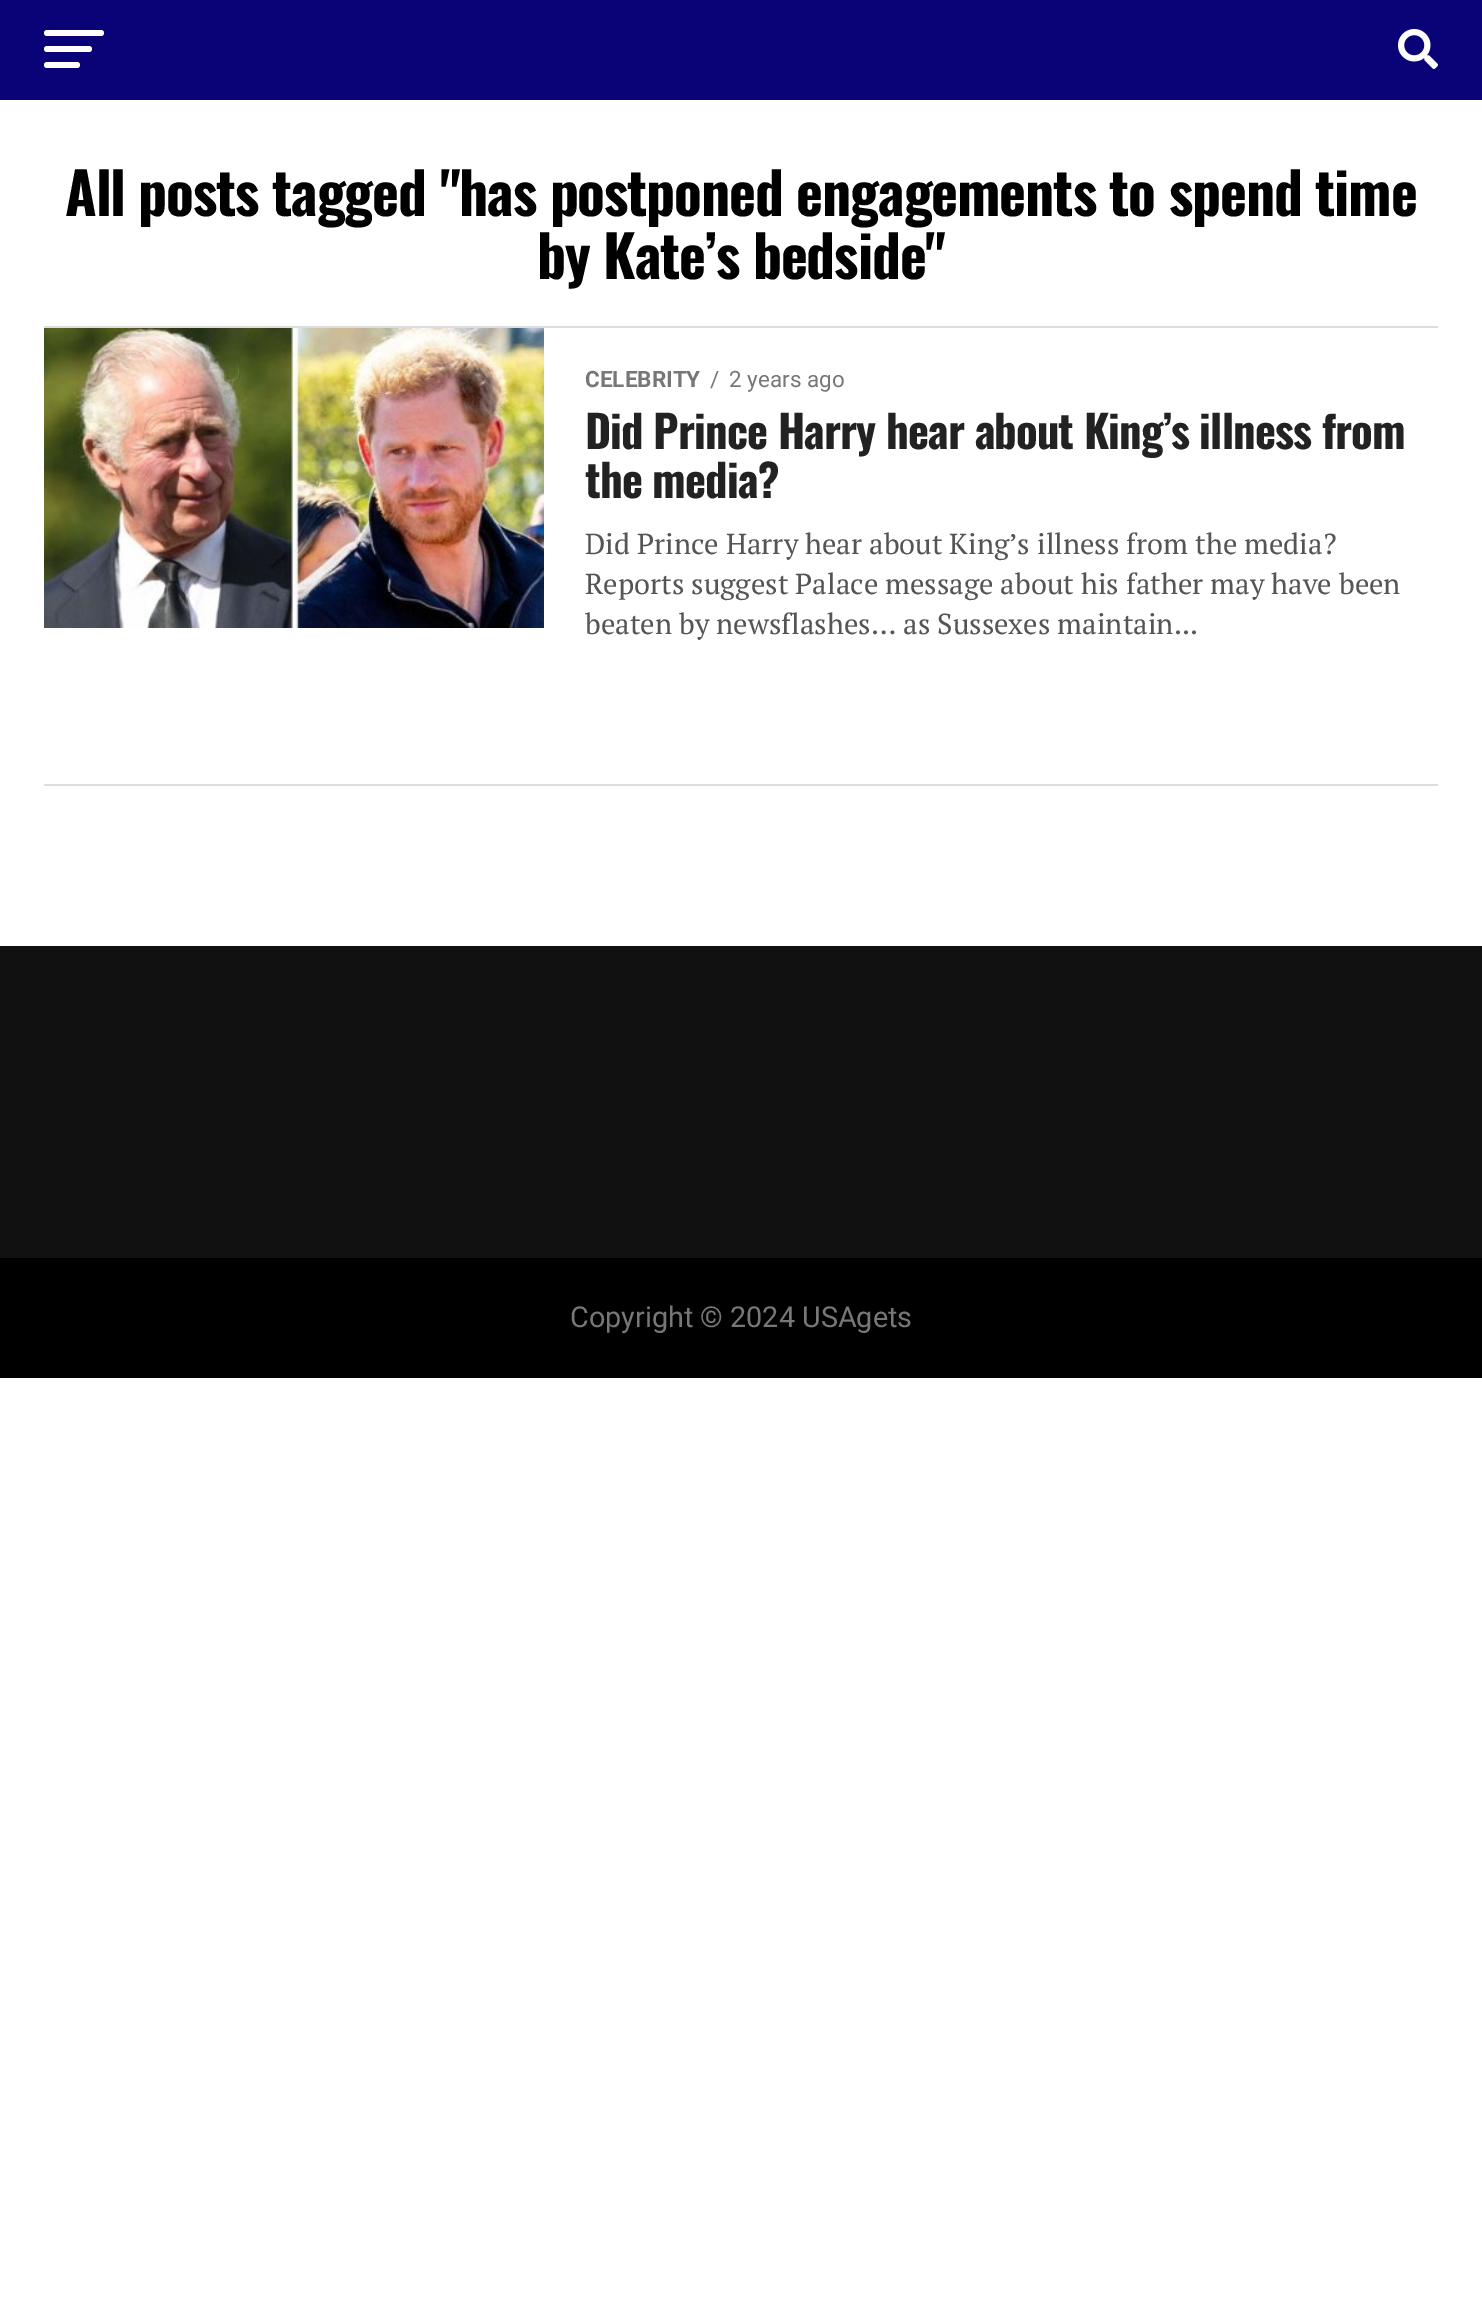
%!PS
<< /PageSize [1482 2316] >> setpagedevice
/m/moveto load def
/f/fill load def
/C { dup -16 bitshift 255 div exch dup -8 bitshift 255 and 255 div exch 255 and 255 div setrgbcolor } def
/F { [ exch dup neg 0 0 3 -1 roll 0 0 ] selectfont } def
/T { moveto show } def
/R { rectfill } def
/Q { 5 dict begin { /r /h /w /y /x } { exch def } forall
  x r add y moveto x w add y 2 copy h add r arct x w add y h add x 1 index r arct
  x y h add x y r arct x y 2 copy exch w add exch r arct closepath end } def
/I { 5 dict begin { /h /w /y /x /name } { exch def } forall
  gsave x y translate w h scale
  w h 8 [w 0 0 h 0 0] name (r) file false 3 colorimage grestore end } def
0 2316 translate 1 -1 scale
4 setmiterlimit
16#FFFFFF C
0 0 1482 2316 R
16#090377 C
0 0 1482 100 R
16#FFFFFF C
44 30 60 6 3 Q f
44 46 48 6 3 Q f
44 62 36 6 3 Q f
(1.rgb) 1398 29 40 40 I
/Oswald-Bold 57.6 F
16#000000 C
65 216 m -1.15 0 (All posts tagged "has postponed engagements to spend time) ashow
537 279 m -1.15 0 (by Kate’s bedside") ashow
16#DDDDDD C
44 326 1394 2 R
(2.rgb) 44 328 500 300 I
/Roboto-Bold 22.5 F
16#777777 C
(CELEBRITY) 585 387 T
/Roboto-Regular 22.5 F
(/) 710 387 T
(2 years ago) 729 387 T
/Oswald-Bold 44.75 F
16#222222 C
585 449 m -.9 0 (Did Prince Harry hear about King’s illness from) ashow
585 498 m -.9 0 (the media?) ashow
/PTSerif-Regular 28.8 F
16#555555 C
(Did Prince Harry hear about King’s illness from the media?) 585 554 T
(Reports suggest Palace message about his father may have been) 585 594 T
(beaten by newsflashes… as Sussexes maintain...) 585 634 T
16#DDDDDD C
44 784 1394 2 R
16#111111 C
0 946 1482 312 R
16#000000 C
0 1258 1482 120 R
/Roboto-Regular 28.8 F
16#777777 C
(Copyright © 2024 USAgets) 570 1327 T
showpage
